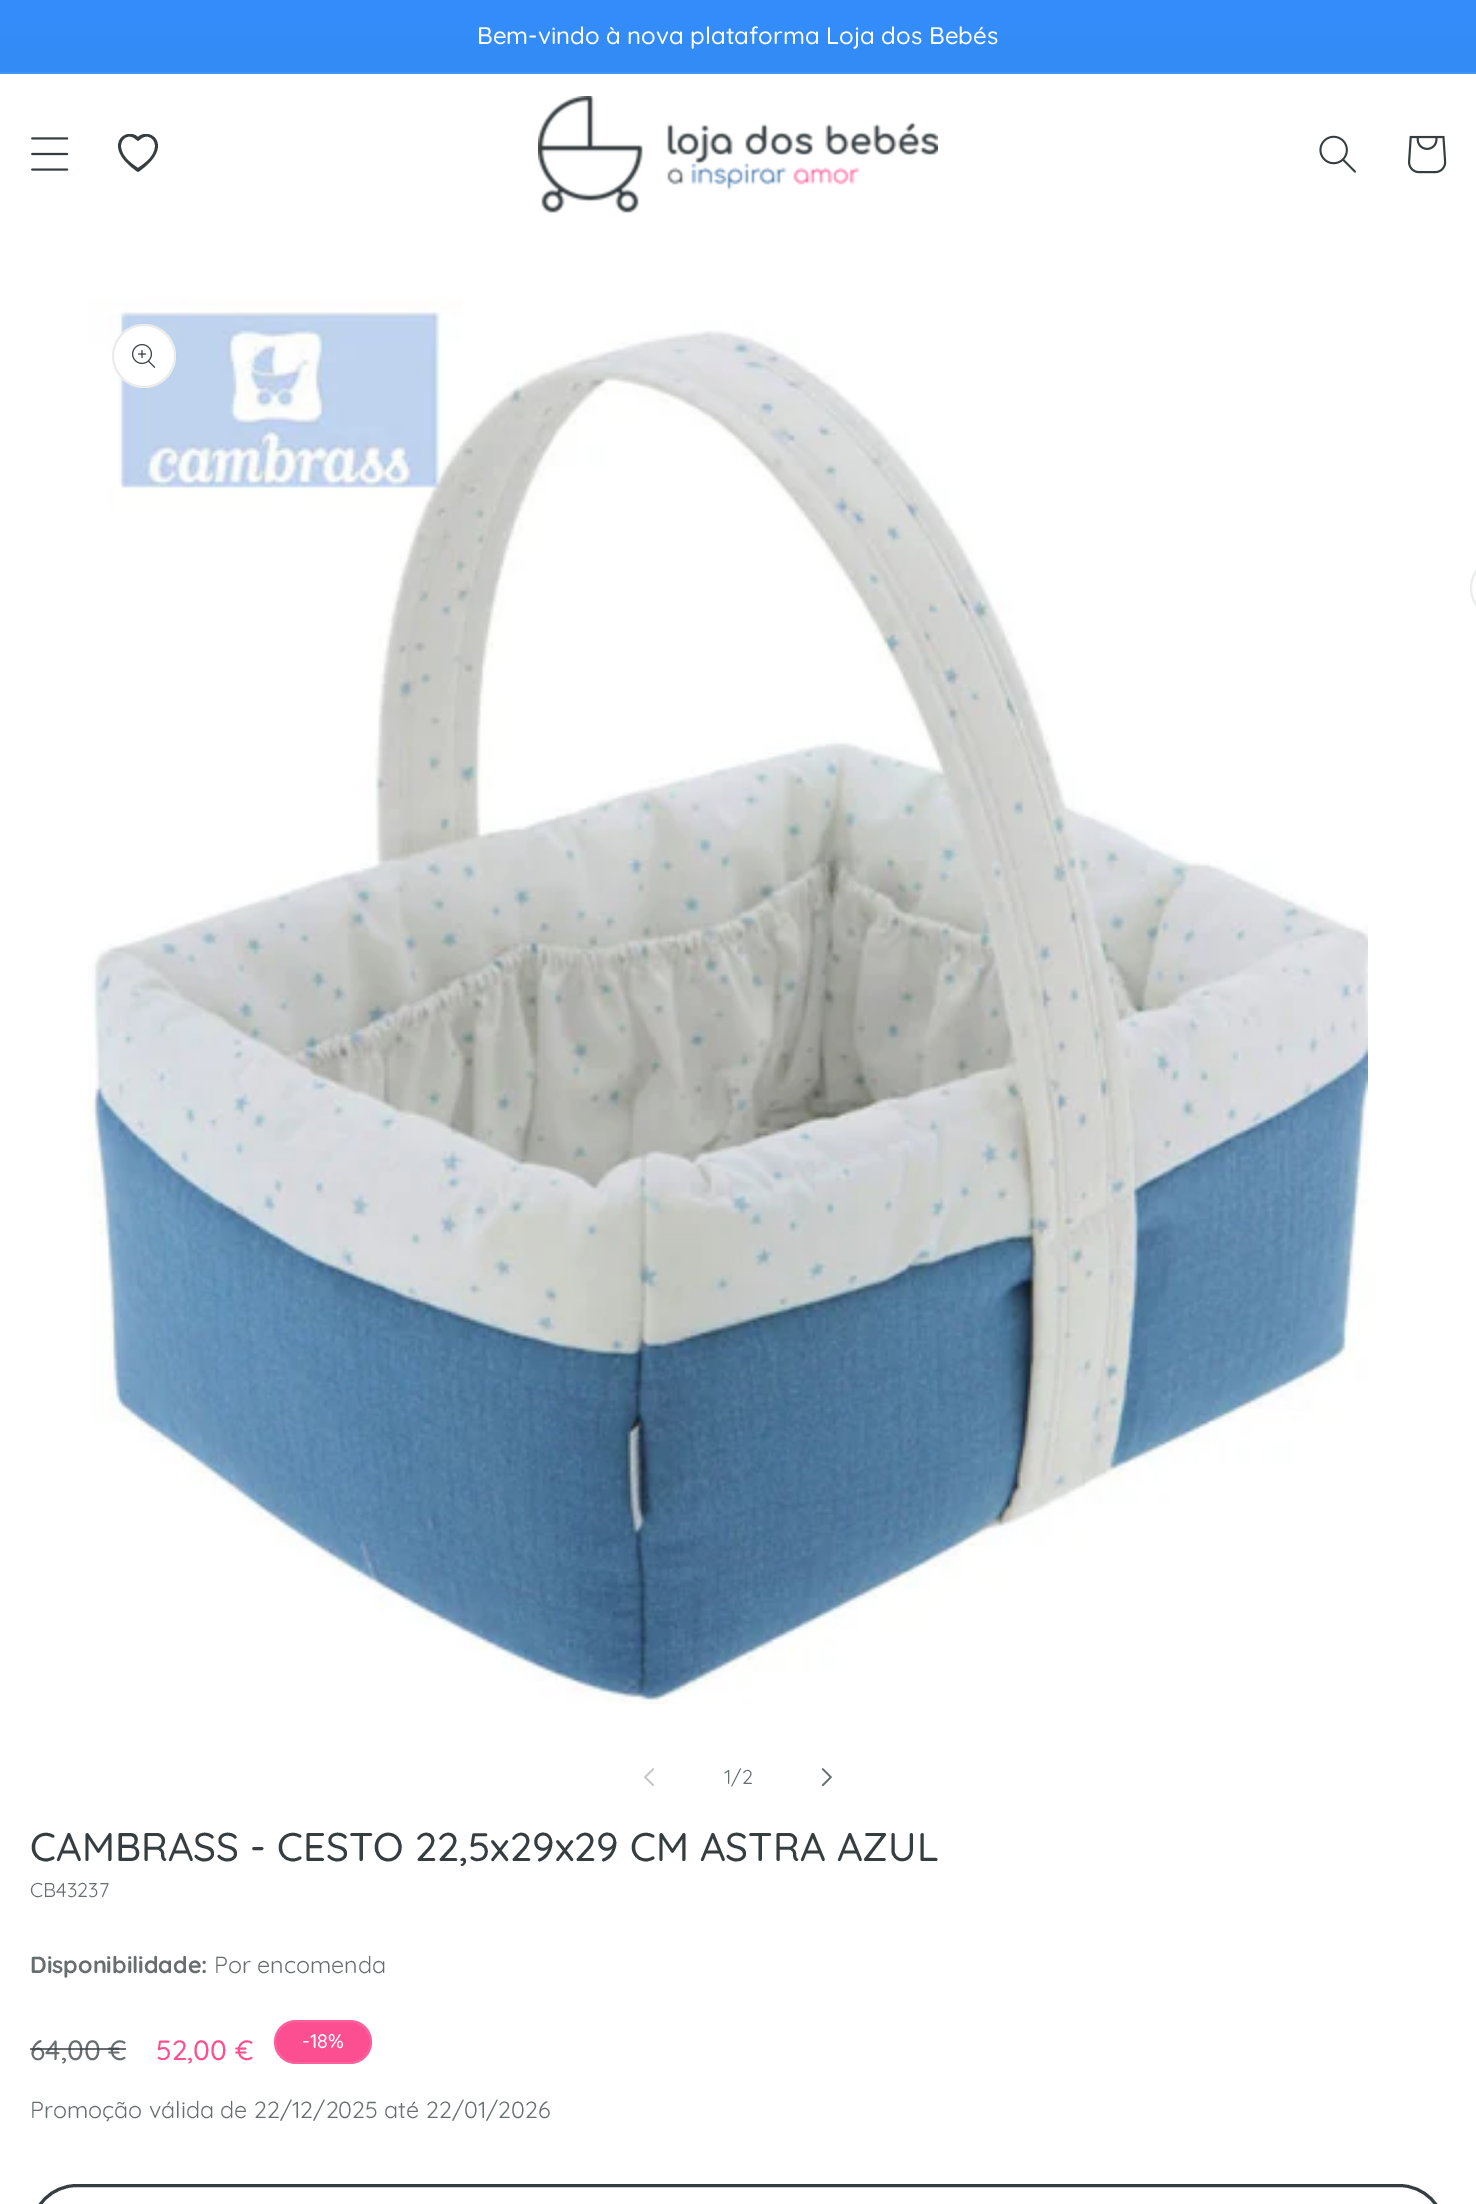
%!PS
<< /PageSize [1476 2204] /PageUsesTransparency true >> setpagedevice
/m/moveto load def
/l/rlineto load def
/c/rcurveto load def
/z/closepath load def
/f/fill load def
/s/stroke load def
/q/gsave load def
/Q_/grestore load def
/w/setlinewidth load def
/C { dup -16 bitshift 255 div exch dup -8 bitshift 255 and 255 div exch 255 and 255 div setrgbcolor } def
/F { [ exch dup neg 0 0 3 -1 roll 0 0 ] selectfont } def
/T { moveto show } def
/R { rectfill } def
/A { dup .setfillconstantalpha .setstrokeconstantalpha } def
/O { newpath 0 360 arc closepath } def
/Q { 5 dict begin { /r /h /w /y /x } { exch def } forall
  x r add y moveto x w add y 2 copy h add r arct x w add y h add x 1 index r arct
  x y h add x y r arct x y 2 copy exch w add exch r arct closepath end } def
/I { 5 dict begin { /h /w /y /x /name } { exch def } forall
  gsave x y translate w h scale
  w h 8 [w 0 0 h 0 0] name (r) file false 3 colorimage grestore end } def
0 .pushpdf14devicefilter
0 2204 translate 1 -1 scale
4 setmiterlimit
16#FFFFFF C
0 0 1476 2204 R
q 0 0 m 1476 0 l 0 72 l -1476 0 l z clip newpath
<< /ShadingType 2 /ColorSpace /DeviceRGB /Coords [738 0 738 2204] /Extend [true true] /Function << /FunctionType 3 /Domain [0 1] /Functions [<< /FunctionType 2 /Domain [0 1] /C0 [.2 .553 .984] /C1 [.196 .408 .639] /N 1 >> << /FunctionType 2 /Domain [0 1] /C0 [.196 .408 .639] /C1 [.196 .408 .639] /N 1 >>] /Bounds [.52] /Encode [0 1 0 1] >> >> shfill Q_
16#4394F6 C
0 72 1476 2 R
/Quicksand-Medium 24 F
16#FFFFFF C
(Bem-vindo à nova plataforma Loja dos Bebés) 477 44 T
(1.rgb) 31 137 38 34 I
q
118 134 40 40 rectclip
16#363D40 C
138 141 m -4 -3 l -8 -5 -16 4 -12 13 c 2 7 10 13 16 17 c 6 -4 14 -10 16 -17 c 4 -9 -4 -18 -12 -13 c z 138 172 m -38 -26 -12 -46 0 -35 c 12 -11 38 9 0 35 c z f
Q_
(2.rgb) 538 96 400 117 I
(3.rgb) 1319 135 37 38 I
(4.rgb) 1408 135 39 39 I
(5.rgb) 88 300 1280 1404 I
144 356 32 O f
0.1 A
16#363D40 C
2 w
144 356 31 O s
1 A
(6.rgb) 132 344 24 24 I
16#EBECEC C
1471 557 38 62 31 Q s
(7.rgb) 644 1768 10 18 I
/Quicksand-Regular 20 F
16#686E70 C
(1/2) 724 1784 T
(8.rgb) 821 1768 11 19 I
/Quicksand-Medium 40 F
16#363D40 C
(CAMBRASS - CESTO 22,5x29x29 CM ASTRA AZUL) 30 1861 T
/Quicksand-Regular 20 F
16#686E70 C
(CB43237) 30 1897 T
/Quicksand-Bold 23.3 F
(Disponibilidade:) 30 1973 T
/Quicksand-Regular 23.3 F
(Por encomenda) 214 1973 T
/Quicksand-Medium 28 F
(64,00 €) 30 2060 T
0.75 A
16#363D40 C
30 2048 96 2 R
1 A
16#FB4F91 C
(52,00 €) 156 2060 T
274 2020 98 44 22 Q f
0.1 A
16#FFFFFF C
275 2021 96 42 21 Q s
/Quicksand-Medium 20 F
1 A
(-18%) 302 2048 T
/Quicksand-Regular 23.3 F
16#686E70 C
(Promoção válida de 22/12/2025 até 22/01/2026) 30 2118 T
16#363D40 C
3 w
31.5 2185.5 1413 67 45.5 Q s
.poppdf14devicefilter showpage
